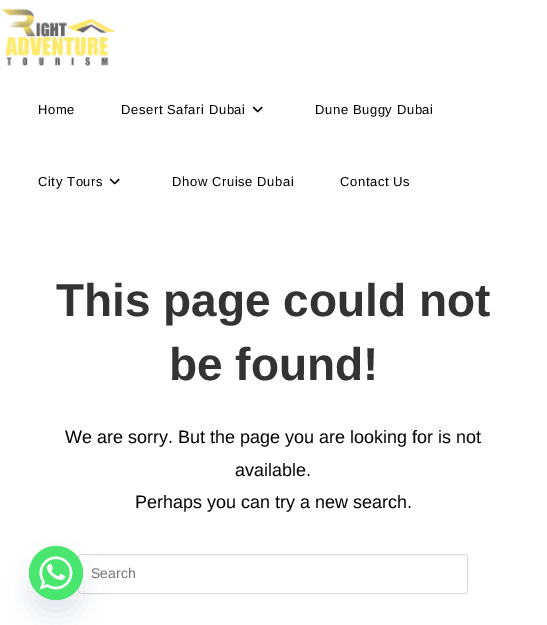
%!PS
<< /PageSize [547 625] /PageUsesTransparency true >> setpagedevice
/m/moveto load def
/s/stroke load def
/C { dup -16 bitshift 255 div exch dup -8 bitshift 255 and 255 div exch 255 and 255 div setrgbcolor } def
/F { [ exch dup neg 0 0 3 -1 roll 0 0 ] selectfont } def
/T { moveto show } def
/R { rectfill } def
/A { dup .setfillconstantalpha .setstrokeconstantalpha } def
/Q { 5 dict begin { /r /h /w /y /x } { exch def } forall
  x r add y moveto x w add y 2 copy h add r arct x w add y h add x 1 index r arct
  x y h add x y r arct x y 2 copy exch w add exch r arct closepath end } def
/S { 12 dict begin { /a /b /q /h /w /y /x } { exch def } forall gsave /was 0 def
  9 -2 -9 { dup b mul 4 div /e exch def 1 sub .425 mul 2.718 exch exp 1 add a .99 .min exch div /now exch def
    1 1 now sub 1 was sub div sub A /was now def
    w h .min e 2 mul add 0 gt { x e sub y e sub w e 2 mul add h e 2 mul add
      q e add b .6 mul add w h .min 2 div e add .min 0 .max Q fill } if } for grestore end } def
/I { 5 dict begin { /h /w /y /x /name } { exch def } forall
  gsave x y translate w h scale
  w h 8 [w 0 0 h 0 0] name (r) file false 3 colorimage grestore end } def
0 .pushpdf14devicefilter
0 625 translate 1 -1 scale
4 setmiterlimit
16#FFFFFF C
0 0 547 625 R
(1.rgb) 1 8 115 59 I
/LiberationSans-Regular 13 F
16#000000 C
38 114 m .6 0 (Home) ashow
121 114 m .6 0 (Desert Safari Dubai) ashow
(2.rgb) 252 106 11 7 I
315 114 m .6 0 (Dune Buggy Dubai) ashow
38 186 m .6 0 (City Tours) ashow
(2.rgb) 109 178 11 7 I
172 186 m .6 0 (Dhow Cruise Dubai) ashow
340 186 m .6 0 (Contact Us) ashow
/LiberationSans-Bold 46 F
16#333333 C
(This page could not) 56 316 T
(be found!) 169 380 T
/LiberationSans-Regular 18 F
16#000000 C
(We are sorry. But the page you are looking for is not) 65 443 T
(available.) 235 476 T
(Perhaps you can try a new search.) 135 508 T
16#DDDDDD C
78.5 554.5 389 39 2.5 Q s
/LiberationSans-Regular 14 F
16#757575 C
(Search) 91 578 T
16#49687E C
29 562 54 54 27 12 .16 S
(3.rgb) 29 546 54 54 I
.poppdf14devicefilter showpage
